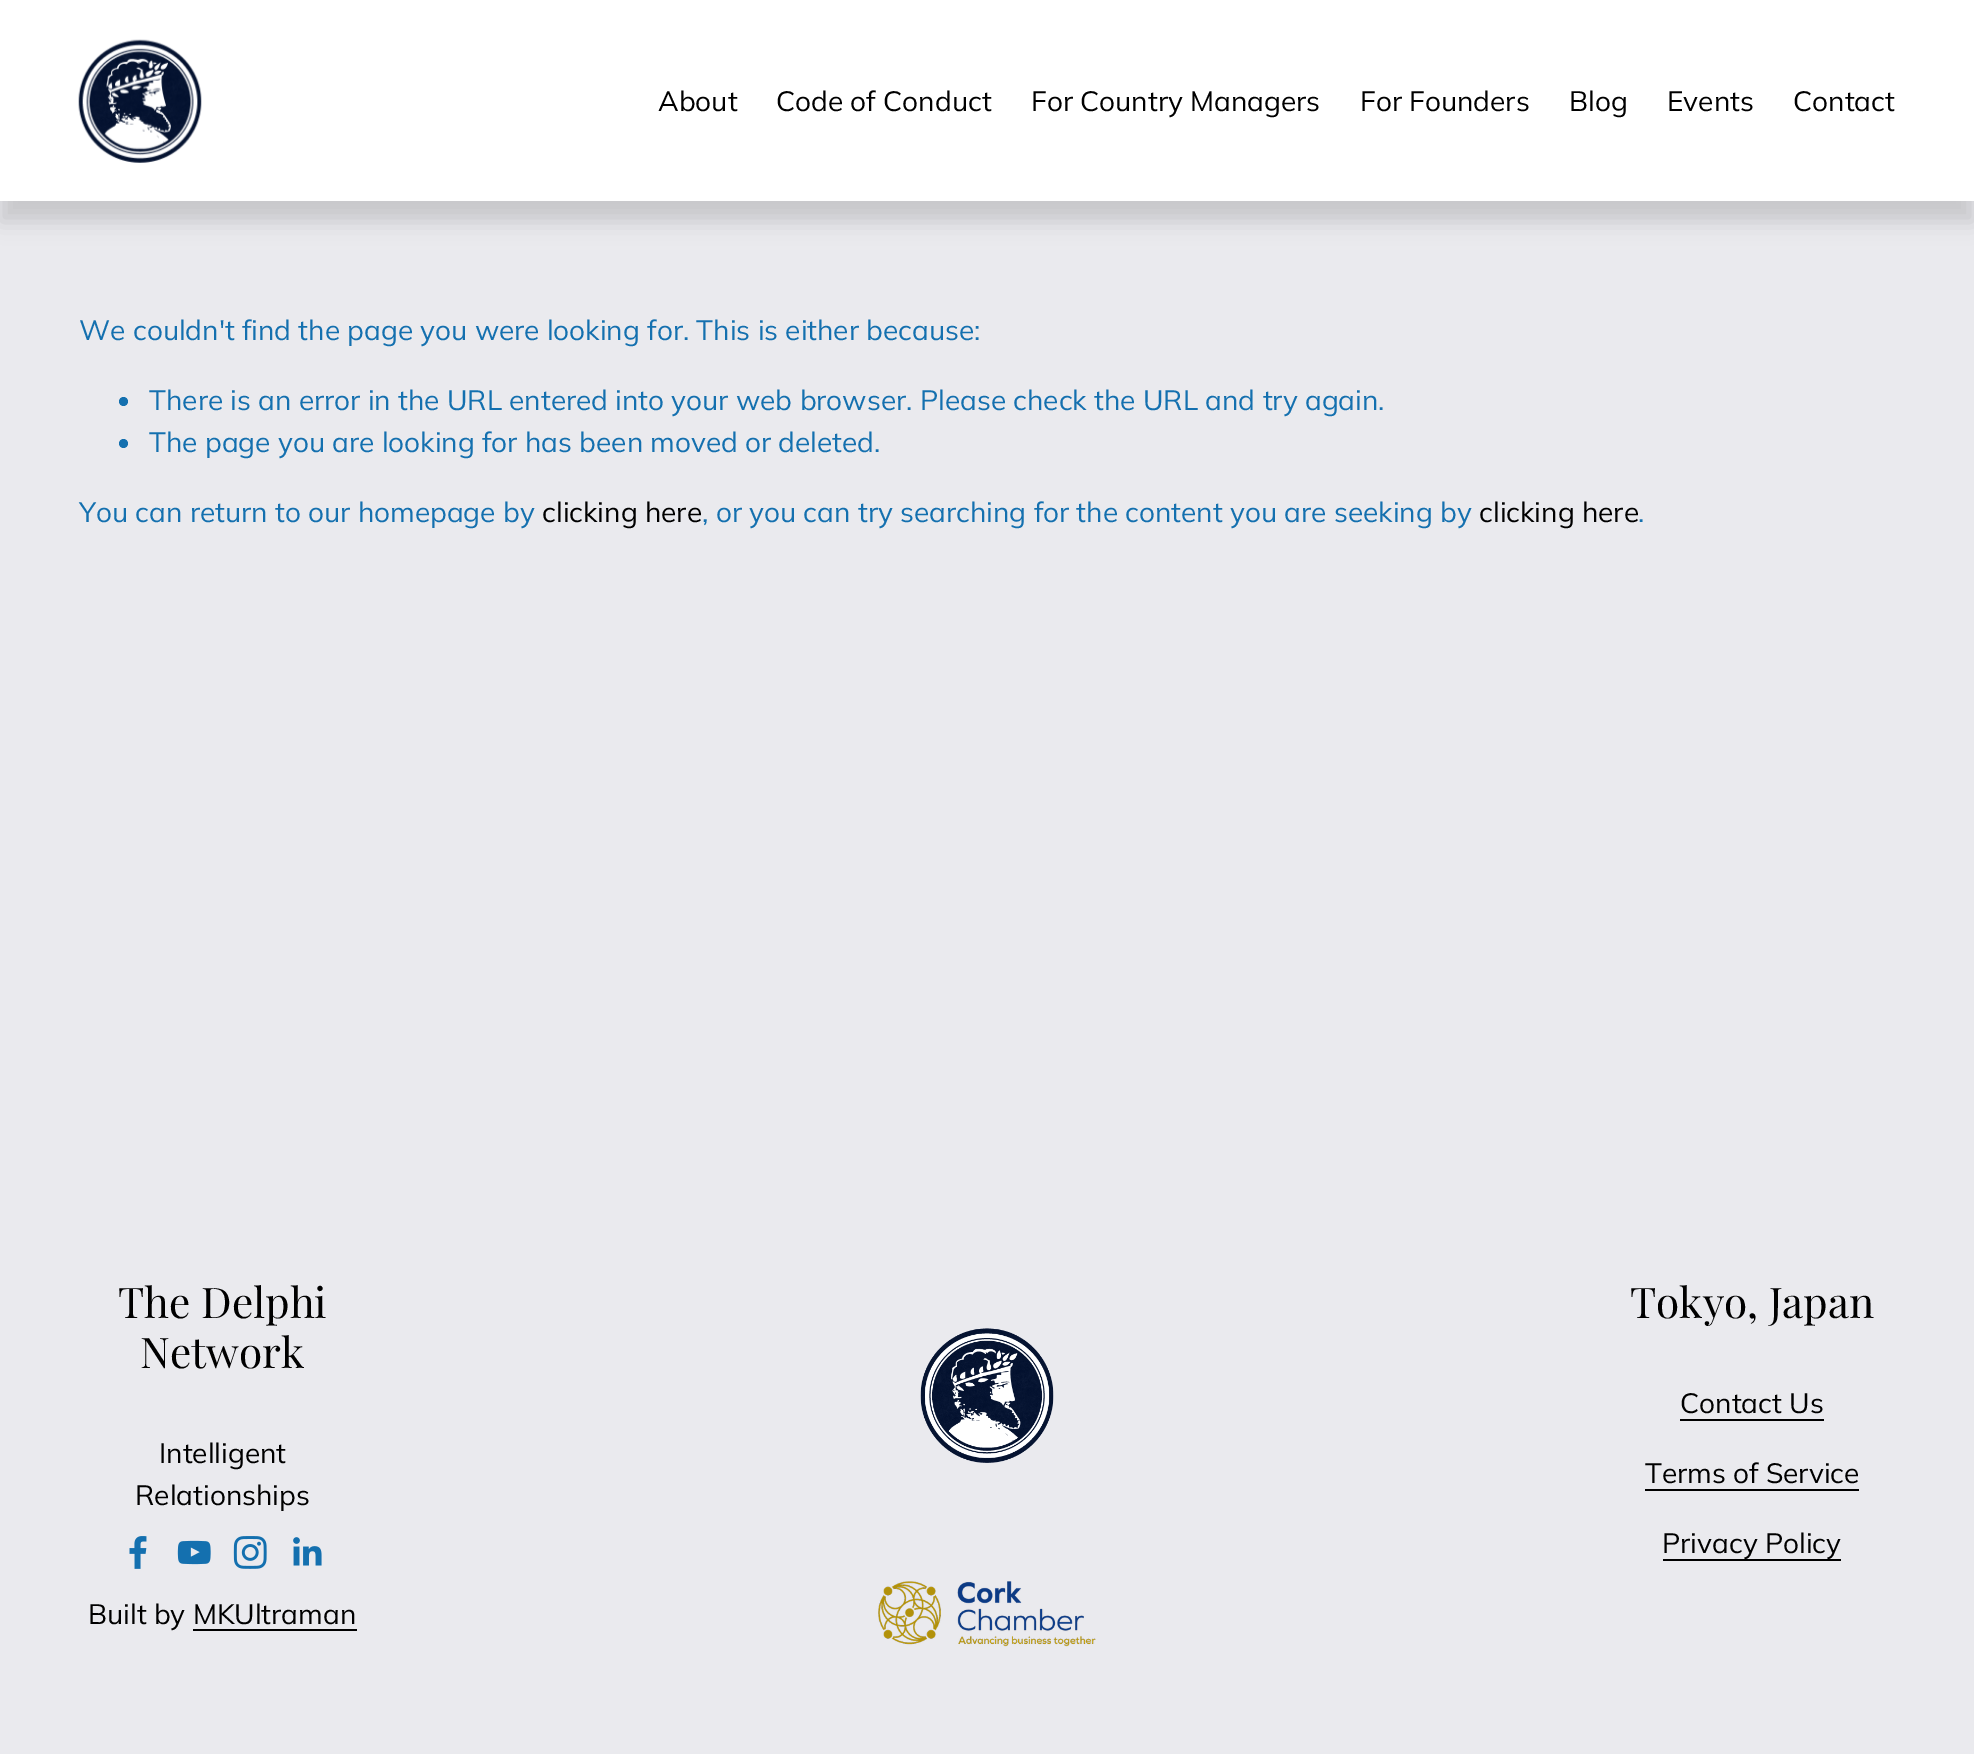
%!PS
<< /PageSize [1974 1754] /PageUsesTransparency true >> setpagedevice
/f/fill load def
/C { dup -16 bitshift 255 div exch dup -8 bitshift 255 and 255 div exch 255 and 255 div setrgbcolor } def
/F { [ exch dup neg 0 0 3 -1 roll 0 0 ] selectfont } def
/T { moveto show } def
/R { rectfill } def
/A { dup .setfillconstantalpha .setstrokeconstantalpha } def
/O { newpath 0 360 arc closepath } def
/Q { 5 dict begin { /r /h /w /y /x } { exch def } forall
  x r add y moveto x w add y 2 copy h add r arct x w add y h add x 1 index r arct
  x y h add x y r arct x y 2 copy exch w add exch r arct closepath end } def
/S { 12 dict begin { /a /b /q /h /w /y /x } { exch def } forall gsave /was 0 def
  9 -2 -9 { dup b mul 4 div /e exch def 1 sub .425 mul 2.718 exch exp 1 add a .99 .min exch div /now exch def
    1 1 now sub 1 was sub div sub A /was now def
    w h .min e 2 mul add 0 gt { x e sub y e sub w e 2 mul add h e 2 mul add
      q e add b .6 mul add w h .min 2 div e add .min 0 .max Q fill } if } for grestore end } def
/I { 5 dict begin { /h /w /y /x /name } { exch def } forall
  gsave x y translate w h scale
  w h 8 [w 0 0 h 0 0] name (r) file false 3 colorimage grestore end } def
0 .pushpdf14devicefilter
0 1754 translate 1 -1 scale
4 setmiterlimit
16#EAEAEE C
0 0 1974 1754 R
16#C7C7CA C
0 21 1974 201 0 10.5 1 S
16#FFFFFF C
0 0 1974 201 R
(1.rgb) 78 39 124 124 I
/Mulish-Regular 28 F
16#000000 C
(About) 658 111 T
(Code of Conduct) 776 111 T
(For Country Managers) 1031 111 T
(For Founders) 1360 111 T
(Blog) 1569 111 T
(Events) 1667 111 T
(Contact) 1793 111 T
16#1470AF C
(We couldn't find the page you were looking for. This is either because:) 79 340 T
123.5 401.5 4.5 O f
(There is an error in the URL entered into your web browser. Please check the URL and try again.) 149 410 T
123.5 443.5 4.5 O f
(The page you are looking for has been moved or deleted.) 149 452 T
(You can return to our homepage by) 79 522 T
16#000000 C
(clicking here) 542 522 T
16#1470AF C
(, or you can try searching for the content you are seeking by) 702 522 T
16#000000 C
(clicking here) 1479 522 T
16#1470AF C
(.) 1638 522 T
/PlayfairDisplay-Regular 42.25 F
16#000000 C
(The Delphi) 118 1318 T
(Network) 140 1368 T
/Mulish-Regular 28 F
(Intelligent) 159 1463 T
(Relationships) 135 1505 T
(2.rgb) 920 1328 134 135 I
/PlayfairDisplay-Regular 42.25 F
(Tokyo, Japan) 1630 1318 T
/Mulish-Regular 28 F
(Contact Us) 1680 1413 T
1680 1419 144 2 R
(Terms of Service) 1645 1483 T
1645 1489 214 2 R
1663 1559 178 2 R
(Privacy Policy) 1662 1553 T
(3.rgb) 129 1536 18 33 I
(4.rgb) 177 1540 34 25 I
(5.rgb) 233 1536 34 33 I
(6.rgb) 293 1537 29 29 I
(Built by MKUltraman) 88 1624 T
193 1629 164 2 R
(7.rgb) 878 1581 218 66 I
.poppdf14devicefilter showpage
